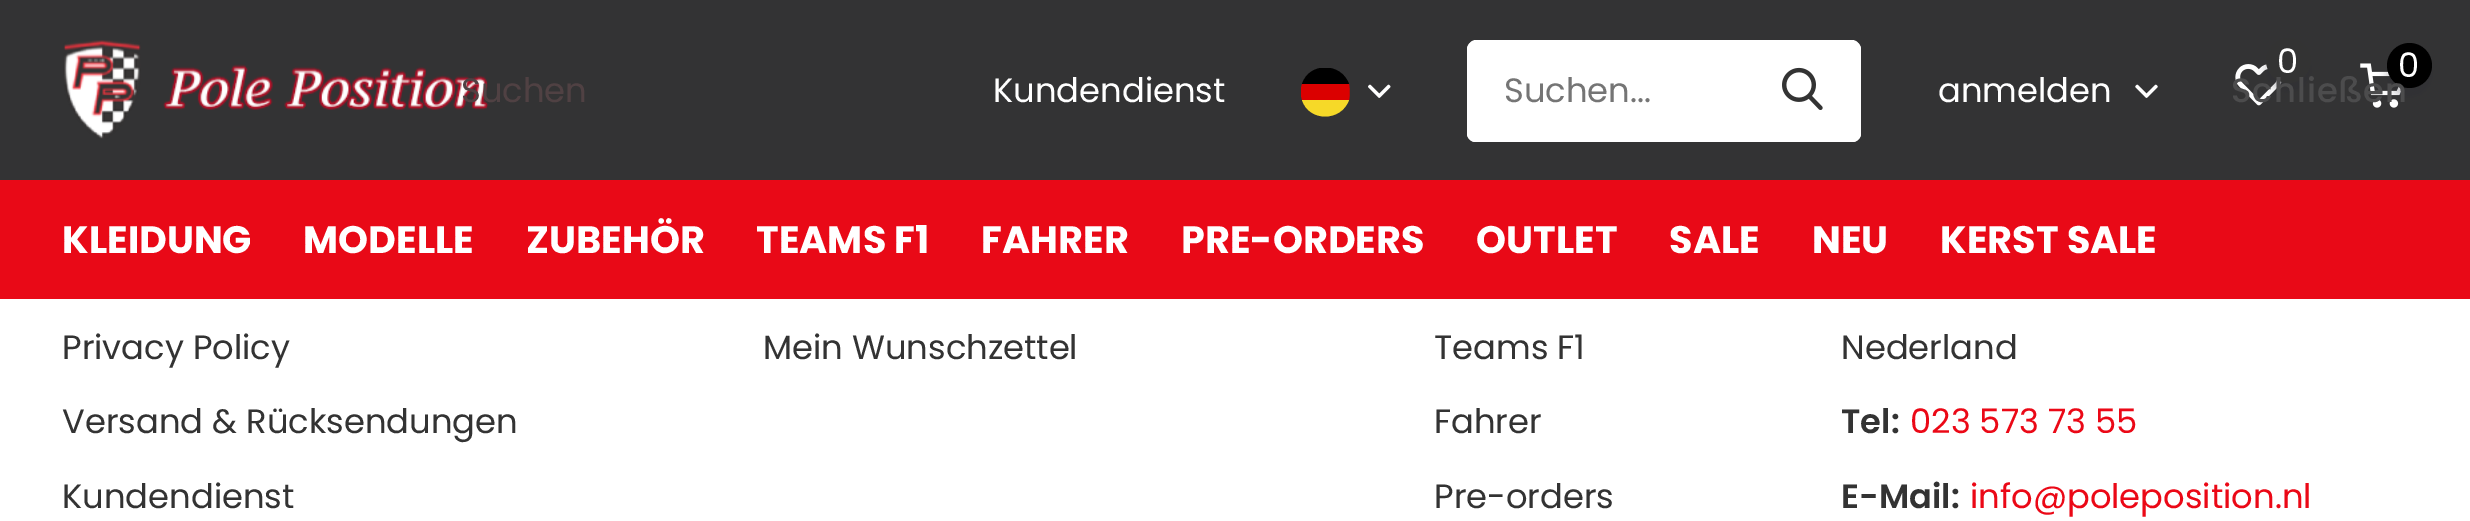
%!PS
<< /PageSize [2470 521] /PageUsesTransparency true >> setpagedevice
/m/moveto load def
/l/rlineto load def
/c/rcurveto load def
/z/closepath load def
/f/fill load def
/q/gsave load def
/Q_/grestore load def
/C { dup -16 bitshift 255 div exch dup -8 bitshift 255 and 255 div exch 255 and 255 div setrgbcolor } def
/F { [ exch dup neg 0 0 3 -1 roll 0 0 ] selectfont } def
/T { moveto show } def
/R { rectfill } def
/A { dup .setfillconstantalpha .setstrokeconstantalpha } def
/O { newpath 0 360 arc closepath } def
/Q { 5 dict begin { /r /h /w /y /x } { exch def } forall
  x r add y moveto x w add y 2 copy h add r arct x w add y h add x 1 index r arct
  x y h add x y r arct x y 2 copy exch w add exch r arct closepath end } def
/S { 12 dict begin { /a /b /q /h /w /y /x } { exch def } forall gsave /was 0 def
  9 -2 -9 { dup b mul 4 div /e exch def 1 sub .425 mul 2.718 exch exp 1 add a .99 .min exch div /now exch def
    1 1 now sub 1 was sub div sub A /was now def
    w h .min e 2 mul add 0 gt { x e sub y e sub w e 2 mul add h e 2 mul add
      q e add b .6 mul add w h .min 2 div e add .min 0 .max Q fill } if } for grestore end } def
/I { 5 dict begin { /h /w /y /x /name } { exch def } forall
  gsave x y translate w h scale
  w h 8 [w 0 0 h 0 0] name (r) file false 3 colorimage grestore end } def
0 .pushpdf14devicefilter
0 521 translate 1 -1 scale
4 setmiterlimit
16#FFFFFF C
0 0 2470 521 R
16#333334 C
0 0 2470 180 R
(1.rgb) 63 40 426 99 I
(2.rgb) 2235 64 47 42 I
16#282830 C
2266 47 45 45 22.5 4.5 .25 S
16#333333 C
2288.5 60.5 22.5 O f
/Poppins-Regular 33.75 F
16#FFFFFF C
(0) 2277 73 T
(3.rgb) 2360 63 43 45 I
16#282830 C
2387 52 45 45 22.5 4.5 .25 S
16#000000 C
2409.5 65.5 22.5 O f
16#FFFFFF C
(0) 2398 77 T
(Kundendienst) 993 102 T
q
1301 68 49 49 rectclip
16#000000 C
1302 84 m 47 0 l -8 -22 -40 -22 -47 0 c z f
16#DB0000 C
1300 92 m 2 8 l 47 0 l 1 -5 1 -10 0 -16 c -47 0 l z f
Q_
(4.rgb) 1368 84 23 14 I
16#F6D928 C
1349 100 m -47 0 l 7 22 39 22 47 0 c z f
16#FFFFFF C
1476 41 m 272 0 l 0 101 l -272 0 l -5 0 -9 -4 -9 -9 c 0 -83 l 0 -5 4 -9 9 -9 c z f
1476 40 m 272 0 l 0 102 l -272 0 l -5 0 -9 -4 -9 -9 c 0 -83 l 0 -5 4 -10 9 -10 c z 1476 43 m 272 0 l 0 97 l -272 0 l -4 0 -7 -4 -7 -7 c 0 -83 l 0 -4 3 -7 7 -7 c z eofill
16#757575 C
(Suchen...) 1504 102 T
16#FFFFFF C
1748 41 m 104 0 l 5 0 9 4 9 9 c 0 83 l 0 5 -4 9 -9 9 c -104 0 l z f
1748 40 m 104 0 l 5 0 9 5 9 10 c 0 83 l 0 5 -4 9 -9 9 c -104 0 l z 1748 43 m 104 0 l 3 0 6 3 6 7 c 0 83 l 0 3 -3 7 -6 7 c -104 0 l z eofill
(5.rgb) 1782 67 41 43 I
(anmelden) 1938 102 T
(6.rgb) 2135 84 23 14 I
16#504143 C
(Suchen) 461 102 T
/Poppins-Medium 33.75 F
16#4C4C4D C
2231 102 m 1.1 0 (Schließen) ashow
16#E90917 C
0 180 2470 119 R
/Poppins-Bold 38.25 F
16#FFFFFF C
(KLEIDUNG) 62 253 T
(MODELLE) 303 253 T
(ZUBEHÖR) 526 253 T
(TEAMS F1) 756 253 T
(FAHRER) 981 253 T
(PRE-ORDERS) 1181 253 T
(OUTLET) 1476 253 T
(SALE) 1669 253 T
(NEU) 1812 253 T
(KERST SALE) 1940 253 T
/Poppins-Regular 33.75 F
16#333333 C
(Privacy Policy) 62 359 T
(Versand & Rücksendungen) 62 433 T
(Kundendienst) 62 508 T
(Mein Wunschzettel) 763 359 T
(Teams F1) 1434 359 T
(Fahrer) 1434 433 T
(Pre-orders) 1434 508 T
(Nederland) 1841 359 T
/Poppins-SemiBold 33.75 F
(Tel:) 1841 433 T
/Poppins-Regular 33.75 F
16#EB0816 C
(023 573 73 55) 1910 433 T
/Poppins-SemiBold 33.75 F
16#333333 C
(E-Mail:) 1841 508 T
/Poppins-Regular 33.75 F
16#EB0816 C
(info@poleposition.nl) 1970 508 T
.poppdf14devicefilter showpage
